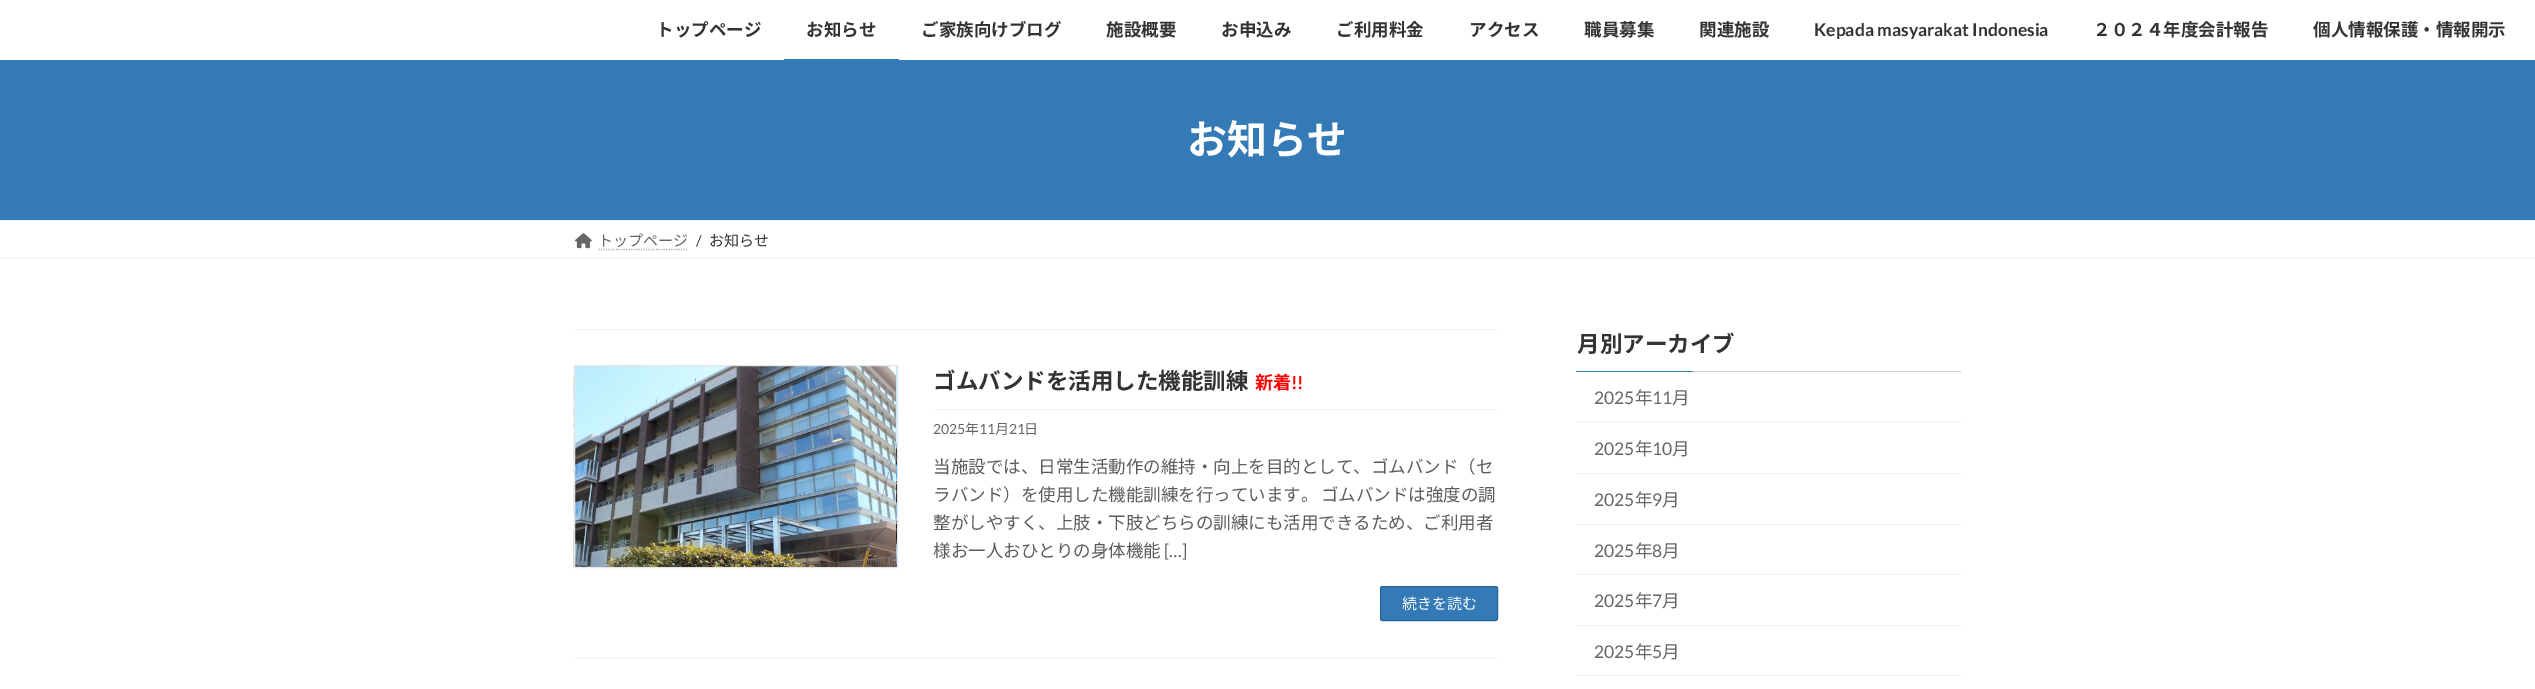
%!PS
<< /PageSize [2535 689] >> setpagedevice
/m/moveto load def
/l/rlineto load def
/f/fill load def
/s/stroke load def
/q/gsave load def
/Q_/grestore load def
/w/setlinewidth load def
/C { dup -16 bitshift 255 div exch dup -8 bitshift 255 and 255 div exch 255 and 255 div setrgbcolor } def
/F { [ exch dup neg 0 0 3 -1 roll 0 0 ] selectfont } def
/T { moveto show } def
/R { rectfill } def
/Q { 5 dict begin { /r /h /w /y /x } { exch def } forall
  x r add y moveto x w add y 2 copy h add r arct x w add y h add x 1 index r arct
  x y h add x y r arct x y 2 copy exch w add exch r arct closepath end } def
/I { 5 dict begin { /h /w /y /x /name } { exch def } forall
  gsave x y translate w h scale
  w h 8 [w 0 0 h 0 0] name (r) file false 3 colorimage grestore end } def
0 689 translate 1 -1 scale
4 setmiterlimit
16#FFFFFF C
0 0 2535 689 R
/NotoSansJP-Bold 17.5 F
16#333333 C
(トップページ) 656 36 T
(お知らせ) 806 36 T
16#337AB7 C
784 59 115 1 R
16#333333 C
(ご家族向けブログ) 921 36 T
(施設概要) 1106 36 T
(お申込み) 1221 36 T
(ご利用料金) 1336 36 T
(アクセス) 1469 36 T
(職員募集) 1584 36 T
(関連施設) 1699 36 T
/Lato-Bold 17.5 F
(Kepada masyarakat Indonesia) 1814 36 T
/NotoSansJP-Bold 17.5 F
(２０２４年度会計報告) 2093 36 T
(個人情報保護・情報開示) 2313 36 T
16#337AB7 C
0 60 2535 160 R
/NotoSansJP-Bold 40 F
16#FFFFFF C
(お知らせ) 1187 154 T
16#F0F0F0 C
0 220 2535 1 R
0 258 2535 1 R
(1.rgb) 575 233 17 16 I
/NotoSansJP-Regular 15 F
16#666666 C
(トップページ) 598 246 T
16#B3B3B3 C
1.2 w
[1.25 1.25] 0 setdash
598.5 249.5 m 90 0 l s
/Lato-Regular 15 F
16#333333 C
(/) 696 246 T
/NotoSansJP-Regular 15 F
(お知らせ) 709 246 T
16#F0F0F0 C
574 329 924 1 R
574 658 924 1 R
(2.rgb) 573 365 324 203 I
16#E5E5E5 C
1 w
[] 0 setdash
574.5 365.5 323 202 rectstroke
16#F0F0F0 C
934 409 564 1 R
/NotoSansJP-Bold 22.5 F
16#333333 C
(ゴムバンドを活用した機能訓練) 933 389 T
/NotoSansJP-Bold 18 F
16#FF0000 C
(新着) 1255 389 T
/Lato-Bold 18 F
(!!) 1291 389 T
/Lato-Regular 14 F
16#666666 C
(2025) 933 434 T
/NotoSansJP-Regular 14 F
(年) 965 434 T
/Lato-Regular 14 F
(11) 979 434 T
/NotoSansJP-Regular 14 F
(月) 995 434 T
/Lato-Regular 14 F
(21) 1009 434 T
/NotoSansJP-Regular 14 F
(日) 1024 434 T
/NotoSansJP-Regular 17.5 F
16#5C5C5C C
(当施設では、日常生活動作の維持・向上を目的として、ゴムバンド（セ) 933 473 T
933 501 m -1 0 32 (ラバンド）を使用した機能訓練を行っています。 ゴムバンドは強度の調) widthshow
(整がしやすく、上肢・下肢どちらの訓練にも活用できるため、ご利用者) 933 529 T
(様お一人おひとりの身体機能) 933 557 T
/Lato-Regular 17.5 F
([…]) 1164 557 T
16#337AB7 C
1380.5 586.5 117 34 2 Q q f Q_
16#296292 C
s
/NotoSansJP-Regular 15 F
16#FFFFFF C
(続きを読む) 1402 609 T
16#CCCCCC C
1693 371 268 1 R
/NotoSansJP-Bold 22.5 F
16#333333 C
(月別アーカイブ) 1577 352 T
16#337AB7 C
1576 371 117 1 R
16#F0F0F0 C
1576 421 385 1 R
/Lato-Regular 17.5 F
16#666666 C
(2025) 1594 404 T
/NotoSansJP-Regular 17.5 F
(年) 1635 404 T
/Lato-Regular 17.5 F
(11) 1652 404 T
/NotoSansJP-Regular 17.5 F
(月) 1672 404 T
16#F0F0F0 C
1576 473 385 1 R
/Lato-Regular 17.5 F
16#666666 C
(2025) 1594 455 T
/NotoSansJP-Regular 17.5 F
(年) 1635 455 T
/Lato-Regular 17.5 F
(10) 1652 455 T
/NotoSansJP-Regular 17.5 F
(月) 1672 455 T
16#F0F0F0 C
1576 524 385 1 R
/Lato-Regular 17.5 F
16#666666 C
(2025) 1594 506 T
/NotoSansJP-Regular 17.5 F
(年) 1635 506 T
/Lato-Regular 17.5 F
(9) 1652 506 T
/NotoSansJP-Regular 17.5 F
(月) 1662 506 T
16#F0F0F0 C
1576 574 385 1 R
/Lato-Regular 17.5 F
16#666666 C
(2025) 1594 557 T
/NotoSansJP-Regular 17.5 F
(年) 1635 557 T
/Lato-Regular 17.5 F
(8) 1652 557 T
/NotoSansJP-Regular 17.5 F
(月) 1662 557 T
16#F0F0F0 C
1576 625 385 1 R
/Lato-Regular 17.5 F
16#666666 C
(2025) 1594 607 T
/NotoSansJP-Regular 17.5 F
(年) 1635 607 T
/Lato-Regular 17.5 F
(7) 1652 607 T
/NotoSansJP-Regular 17.5 F
(月) 1662 607 T
16#F0F0F0 C
1576 675 385 1 R
/Lato-Regular 17.5 F
16#666666 C
(2025) 1594 658 T
/NotoSansJP-Regular 17.5 F
(年) 1635 658 T
/Lato-Regular 17.5 F
(5) 1652 658 T
/NotoSansJP-Regular 17.5 F
(月) 1662 658 T
showpage
